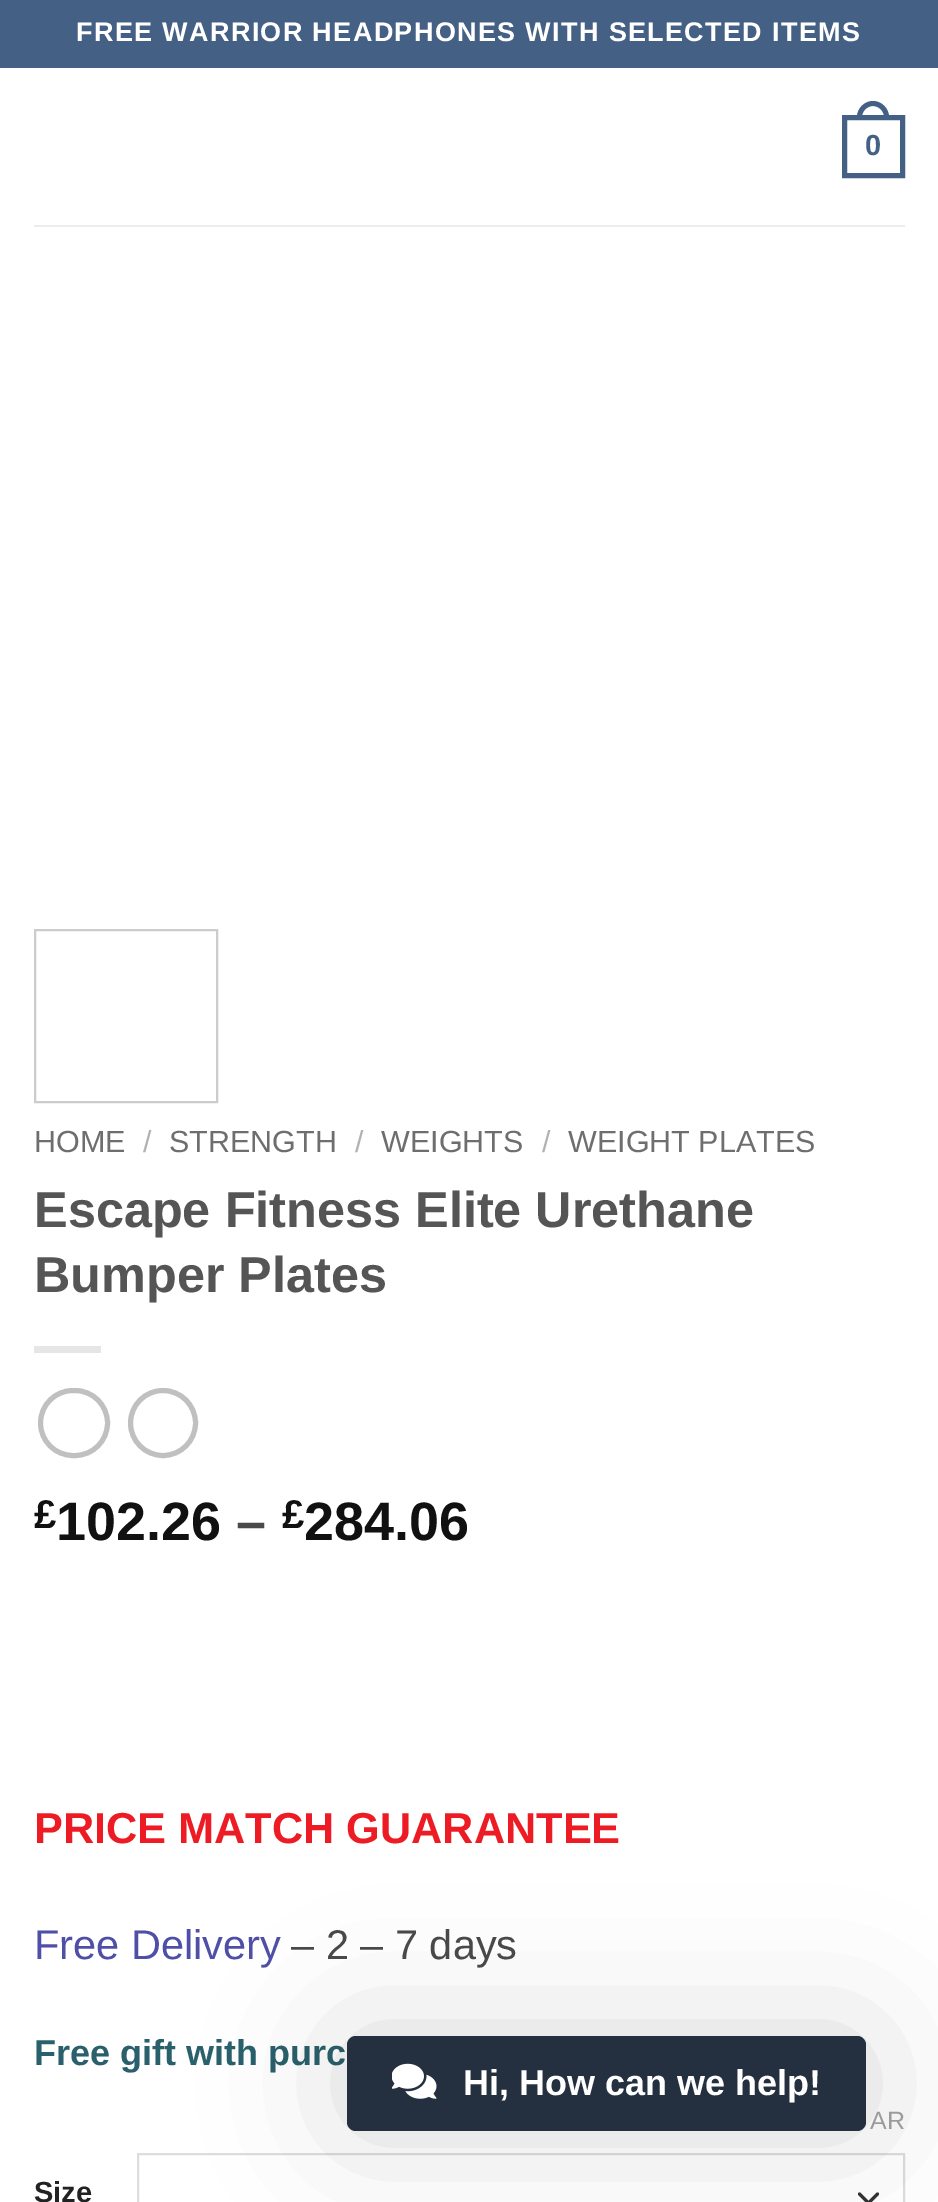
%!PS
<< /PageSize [938 2202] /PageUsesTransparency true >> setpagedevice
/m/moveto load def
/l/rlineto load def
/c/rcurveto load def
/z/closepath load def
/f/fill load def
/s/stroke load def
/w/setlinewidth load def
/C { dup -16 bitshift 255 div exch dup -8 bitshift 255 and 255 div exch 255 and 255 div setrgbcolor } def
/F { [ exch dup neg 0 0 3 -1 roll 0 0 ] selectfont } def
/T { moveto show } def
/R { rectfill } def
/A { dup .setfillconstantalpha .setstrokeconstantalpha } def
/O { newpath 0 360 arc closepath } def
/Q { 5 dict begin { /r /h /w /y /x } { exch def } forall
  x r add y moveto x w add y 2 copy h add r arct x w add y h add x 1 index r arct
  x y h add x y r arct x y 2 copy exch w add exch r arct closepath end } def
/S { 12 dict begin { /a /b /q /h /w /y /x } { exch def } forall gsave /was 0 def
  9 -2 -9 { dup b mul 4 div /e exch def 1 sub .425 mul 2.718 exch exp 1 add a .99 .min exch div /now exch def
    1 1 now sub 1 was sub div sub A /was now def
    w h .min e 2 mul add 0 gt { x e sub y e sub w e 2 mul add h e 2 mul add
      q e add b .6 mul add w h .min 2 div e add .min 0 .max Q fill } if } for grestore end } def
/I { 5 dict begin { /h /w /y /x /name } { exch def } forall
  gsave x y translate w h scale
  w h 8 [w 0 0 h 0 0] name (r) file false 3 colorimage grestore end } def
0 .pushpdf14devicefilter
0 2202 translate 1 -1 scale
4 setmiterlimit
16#FFFFFF C
0 0 938 2202 R
16#446084 C
0 0 938 68 R
/LiberationSans-Bold 27 F
16#FFFFFF C
76 41 m 1.35 0 (FREE WARRIOR HEADPHONES WITH SELECTED ITEMS) ashow
16#446084 C
5 w
844.5 117.5 58 58 rectstroke
873 101 m 8.5 0 16 7.5 16 16 c 0 2 l -32 0 l 0 -2 l 0 -8.5 7.5 -16 16 -16 c z 873 106 m 6 0 11 5 11 11 c 0 2 l -22 0 l 0 -2 l 0 -6 5 -11 11 -11 c z eofill
/LiberationSans-Bold 29 F
(0) 865 155 T
16#EDEDED C
34 225 871 2 R
16#CCCCCC C
2 w
35 930 182 172 rectstroke
/LiberationSans-Regular 30.5 F
16#6E6E6E C
(HOME) 34 1152 T
16#B2B2B2 C
(/) 143 1152 T
16#6E6E6E C
(STRENGTH) 169 1152 T
16#B2B2B2 C
(/) 355 1152 T
16#6E6E6E C
(WEIGHTS) 381 1152 T
16#B2B2B2 C
(/) 542 1152 T
16#6E6E6E C
(WEIGHT PLATES) 568 1152 T
/LiberationSans-Bold 50.4 F
16#555555 C
(Escape Fitness Elite Urethane) 34 1227 T
(Bumper Plates) 34 1292 T
16#E6E6E6 C
34 1346 67 7 R
16#C0C0C0 C
5 w
40.5 1390.5 67 65 32.5 Q s
163 1423 32.5 O s
/LiberationSans-Bold 40 F
16#111111 C
(£) 34 1528 T
/LiberationSans-Bold 54 F
(102.26) 56 1540 T
16#4A4A4A C
(–) 236 1540 T
/LiberationSans-Bold 40 F
16#111111 C
(£) 282 1528 T
/LiberationSans-Bold 54 F
(284.06) 304 1540 T
/LiberationSans-Bold 43.25 F
16#ED1C24 C
(PRICE MATCH GUARANTEE) 34 1843 T
/LiberationSans-Regular 41.5 F
16#4F4FA7 C
(Free Delivery) 34 1959 T
16#4A4A4A C
(– 2 – 7 days) 291 1959 T
/LiberationSans-Bold 36 F
16#29606B C
(Free gift with purc) 34 2065 T
/LiberationSans-Regular 25 F
16#A3A3A3 C
(AR) 870 2129 T
16#333333 C
3 w
1 setlinecap
1 setlinejoin
859.5 2194 m 9 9 l 9 -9 l s
16#DDDDDD C
2 w
0 setlinecap
0 setlinejoin
138 2154 766 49 rectstroke
/LiberationSans-Bold 29 F
16#222222 C
(Size) 34 2202 T
16#000000 C
347 2036 519 95 9 67.5 .15 S
16#24303F C
347 2036 519 95 9 Q f
(1.rgb) 392 2063 45 36 I
/LiberationSans-Bold 36 F
16#FFFFFF C
(Hi, How can we help!) 463 2095 T
.poppdf14devicefilter showpage
